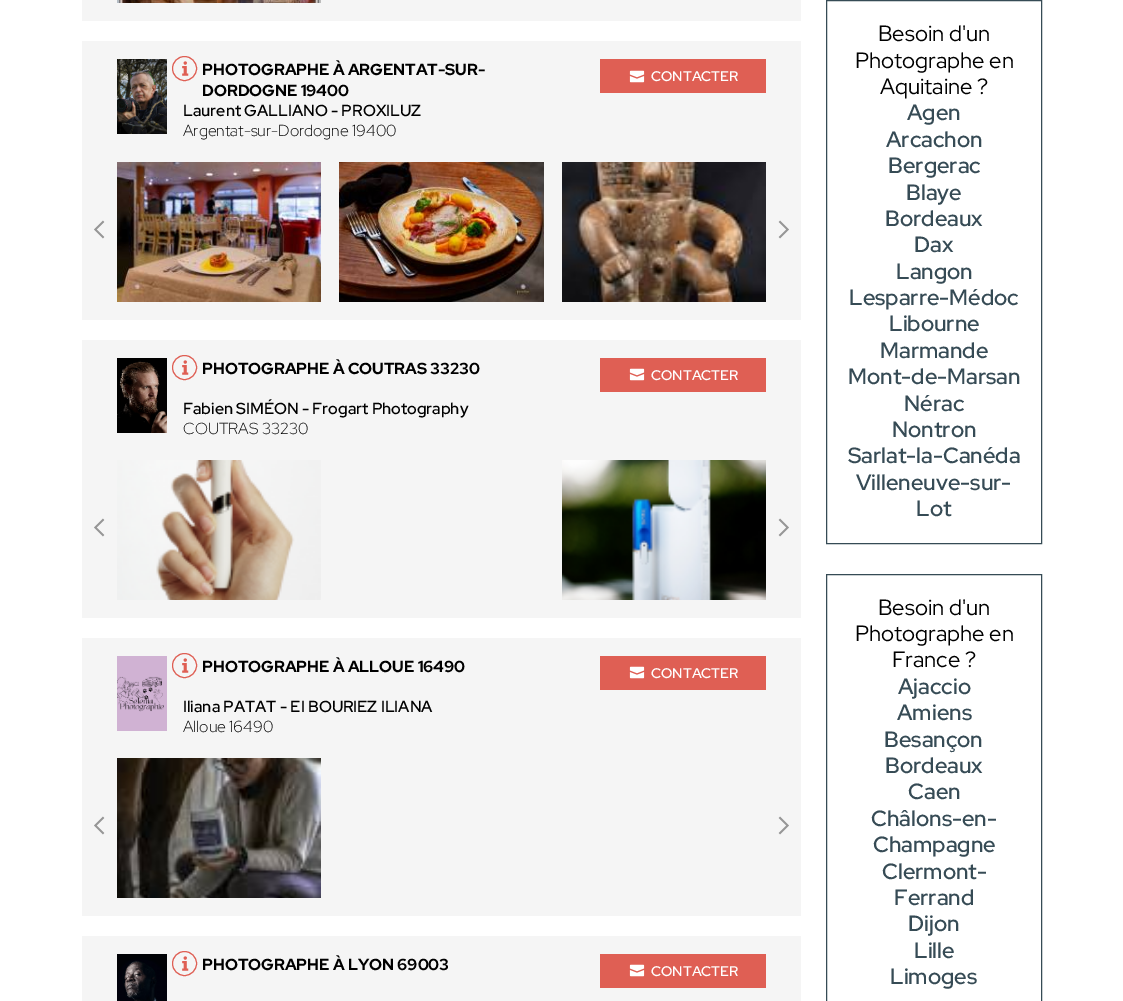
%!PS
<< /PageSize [1123 1001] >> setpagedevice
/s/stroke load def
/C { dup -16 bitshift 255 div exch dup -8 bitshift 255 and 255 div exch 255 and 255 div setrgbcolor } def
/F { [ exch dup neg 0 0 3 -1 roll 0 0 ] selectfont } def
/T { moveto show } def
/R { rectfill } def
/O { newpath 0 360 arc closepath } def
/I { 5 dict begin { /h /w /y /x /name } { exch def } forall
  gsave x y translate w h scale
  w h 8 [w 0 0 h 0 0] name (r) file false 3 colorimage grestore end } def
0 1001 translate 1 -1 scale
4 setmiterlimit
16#FFFFFF C
0 0 1123 1001 R
16#F5F5F5 C
82 0 719 21 R
(1.rgb) 117 0 204 3 I
82 41 719 279 R
(2.rgb) 117 59 50 75 I
16#DF5F54 C
184.5 68.5 12 O s
(3.rgb) 182 61 7 15 I
/RedHatDisplay-Bold 16 F
16#000000 C
(PHOTOGRAPHE À ARGENTAT-SUR-) 202 75 T
(DORDOGNE 19400) 202 96 T
/RedHatDisplay-Medium 16 F
(Laurent GALLIANO - PROXILUZ) 183 116 T
/RedHatDisplay-Light 16 F
(Argentat-sur-Dordogne 19400) 183 136 T
16#DF5F54 C
600 59 166 34 R
(4.rgb) 629 70 16 13 I
/RedHatDisplay-Medium 14 F
16#FFFFFF C
(CONTACTER) 651 81 T
(5.rgb) 117 162 204 140 I
(6.rgb) 339 162 205 140 I
(7.rgb) 562 162 204 140 I
(8.rgb) 94 220 11 19 I
(9.rgb) 778 220 11 19 I
16#F5F5F5 C
82 340 719 278 R
(10.rgb) 117 358 50 75 I
16#DF5F54 C
184.5 367.5 12 O s
(3.rgb) 182 360 7 15 I
/RedHatDisplay-Bold 16 F
16#000000 C
(PHOTOGRAPHE À COUTRAS 33230) 202 374 T
/RedHatDisplay-Medium 16 F
(Fabien SIMÉON - Frogart Photography) 183 414 T
/RedHatDisplay-Light 16 F
(COUTRAS 33230) 183 434 T
16#DF5F54 C
600 358 166 34 R
(4.rgb) 629 368 16 13 I
/RedHatDisplay-Medium 14 F
16#FFFFFF C
(CONTACTER) 651 380 T
(11.rgb) 117 460 204 140 I
(12.rgb) 562 460 204 140 I
(8.rgb) 94 518 11 19 I
(9.rgb) 778 518 11 19 I
16#F5F5F5 C
82 638 719 278 R
(13.rgb) 117 656 50 75 I
16#DF5F54 C
184.5 665.5 12 O s
(3.rgb) 182 658 7 15 I
/RedHatDisplay-Bold 16 F
16#000000 C
(PHOTOGRAPHE À ALLOUE 16490) 202 672 T
/RedHatDisplay-Medium 16 F
(Iliana PATAT - EI BOURIEZ ILIANA) 183 712 T
/RedHatDisplay-Light 16 F
(Alloue 16490) 183 732 T
16#DF5F54 C
600 656 166 34 R
(4.rgb) 629 666 16 13 I
/RedHatDisplay-Medium 14 F
16#FFFFFF C
(CONTACTER) 651 678 T
(14.rgb) 117 758 204 140 I
(8.rgb) 94 816 11 19 I
(9.rgb) 778 816 11 19 I
16#F5F5F5 C
82 936 719 65 R
(15.rgb) 117 954 50 47 I
16#DF5F54 C
184.5 963.5 12 O s
(3.rgb) 182 956 7 15 I
/RedHatDisplay-Bold 16 F
16#000000 C
(PHOTOGRAPHE À LYON 69003) 202 970 T
16#DF5F54 C
600 954 166 34 R
(4.rgb) 629 964 16 13 I
/RedHatDisplay-Medium 14 F
16#FFFFFF C
(CONTACTER) 651 976 T
16#364B55 C
826.5 .5 215 543 rectstroke
/RedHatDisplay-Regular 22 F
16#000000 C
(Besoin d'un) 878 41 T
(Photographe en) 855 68 T
(Aquitaine ?) 880 94 T
/RedHatDisplay-Medium 22 F
16#364B55 C
(Agen) 907 120 T
(Arcachon) 886 147 T
(Bergerac) 888 173 T
(Blaye) 906 200 T
(Bordeaux) 885 226 T
(Dax) 914 252 T
(Langon) 896 279 T
(Lesparre-Médoc) 849 305 T
(Libourne) 889 331 T
(Marmande) 880 358 T
(Mont-de-Marsan) 848 384 T
(Nérac) 904 411 T
(Nontron) 892 437 T
(Sarlat-la-Canéda) 848 463 T
(Villeneuve-sur-) 856 490 T
(Lot) 916 516 T
826.5 574.5 215 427 rectstroke
/RedHatDisplay-Regular 22 F
16#000000 C
(Besoin d'un) 878 615 T
(Photographe en) 855 641 T
(France ?) 892 667 T
/RedHatDisplay-Medium 22 F
16#364B55 C
(Ajaccio) 898 694 T
(Amiens) 897 720 T
(Besançon) 884 747 T
(Bordeaux) 885 773 T
(Caen) 908 799 T
(Châlons-en-) 871 826 T
(Champagne) 873 852 T
(Clermont-) 882 879 T
(Ferrand) 894 905 T
(Dijon) 908 931 T
(Lille) 914 958 T
(Limoges) 890 984 T
showpage
